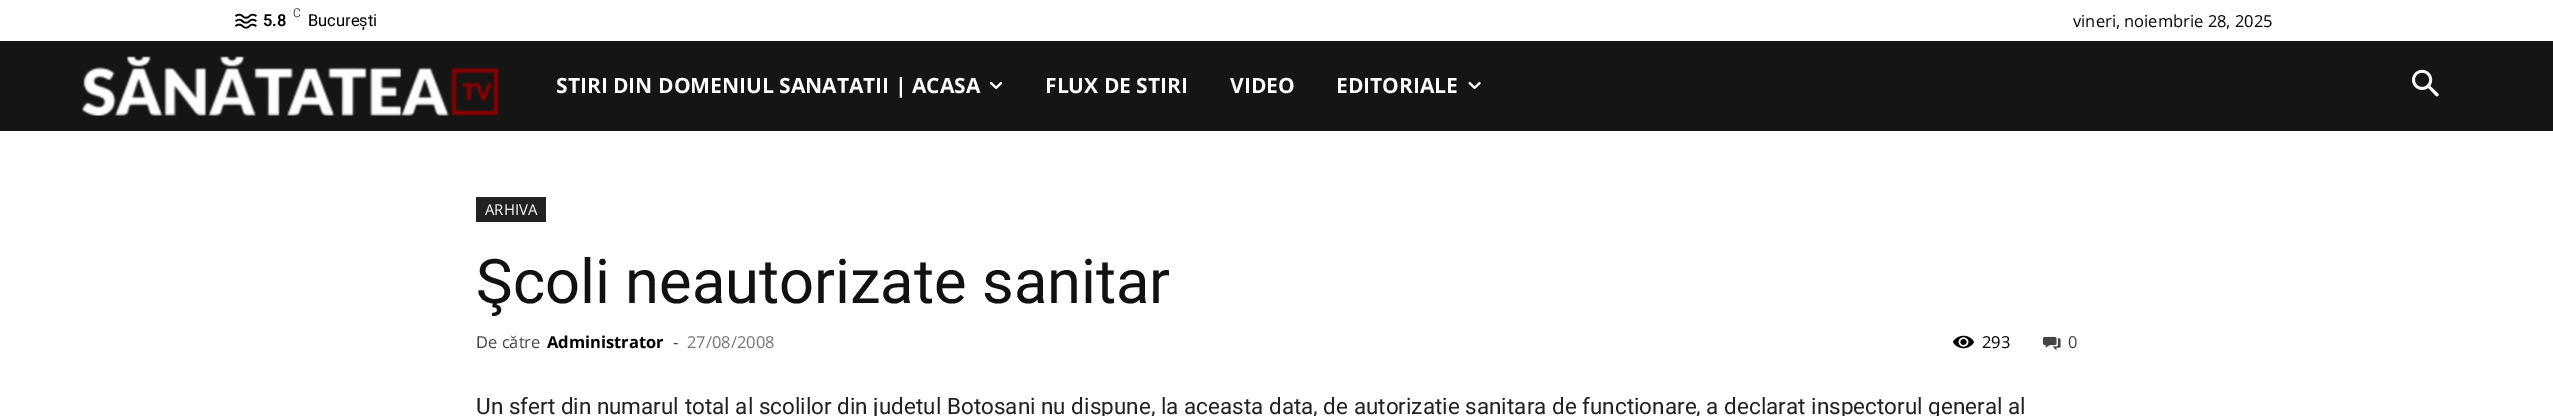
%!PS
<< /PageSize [2553 416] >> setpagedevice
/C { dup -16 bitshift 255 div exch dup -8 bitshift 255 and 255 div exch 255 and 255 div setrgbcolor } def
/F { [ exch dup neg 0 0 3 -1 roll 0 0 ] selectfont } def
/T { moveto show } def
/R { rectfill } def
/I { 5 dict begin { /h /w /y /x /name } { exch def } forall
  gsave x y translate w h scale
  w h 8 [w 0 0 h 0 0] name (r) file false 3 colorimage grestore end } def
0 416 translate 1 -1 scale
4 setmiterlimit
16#FFFFFF C
0 0 2553 416 R
(1.rgb) 234 13 23 16 I
/Roboto-Light 12 F
16#000000 C
(C) 293 17 T
/Roboto-SemiBold 16.5 F
(5.8) 263 26 T
/Roboto-Regular 16.5 F
(București) 308 26 T
/OpenSans-Regular 16.5 F
(vineri, noiembrie 28, 2025) 2073 27 T
16#151515 C
0 41 2553 90 R
(2.rgb) 82 56 417 60 I
/OpenSans-Bold 21 F
16#FFFFFF C
(STIRI DIN DOMENIUL SANATATII | ACASA) 556 93 T
(3.rgb) 990 81 13 8 I
(FLUX DE STIRI) 1045 93 T
(VIDEO) 1230 93 T
(EDITORIALE) 1336 93 T
(4.rgb) 1468 81 13 8 I
(5.rgb) 2412 69 27 28 I
16#222222 C
476 197 70 25 R
/OpenSans-Regular 15 F
16#FFFFFF C
(ARHIVA) 485 215 T
/Roboto-Regular 61.5 F
16#111111 C
(Şcoli neautorizate sanitar) 476 303 T
/OpenSans-Regular 16.5 F
16#444444 C
(De către) 476 348 T
/OpenSans-Bold 16.5 F
16#000000 C
(Administrator) 547 348 T
/OpenSans-Regular 16.5 F
16#444444 C
(-) 673 348 T
16#767676 C
(27/08/2008) 687 348 T
(6.rgb) 1953 335 21 14 I
16#000000 C
(293) 1982 348 T
(7.rgb) 2043 336 18 15 I
16#444444 C
(0) 2068 348 T
/Roboto-Regular 22.5 F
16#222222 C
(Un sfert din numarul total al scolilor din judetul Botosani nu dispune, la aceasta data, de autorizatie sanitara de functionare, a declarat inspectorul general al) 476 414 T
showpage
